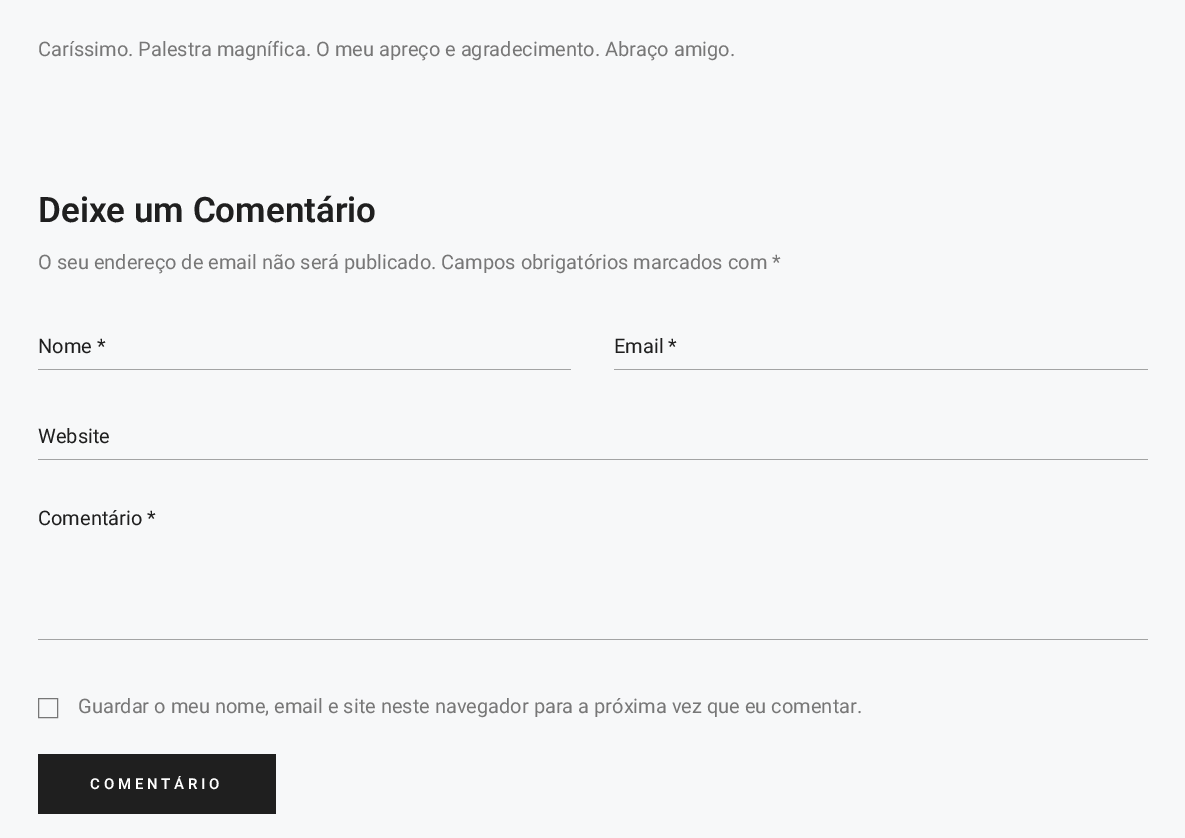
%!PS
<< /PageSize [1185 838] >> setpagedevice
/m/moveto load def
/q/gsave load def
/Q_/grestore load def
/C { dup -16 bitshift 255 div exch dup -8 bitshift 255 and 255 div exch 255 and 255 div setrgbcolor } def
/F { [ exch dup neg 0 0 3 -1 roll 0 0 ] selectfont } def
/T { moveto show } def
/R { rectfill } def
0 838 translate 1 -1 scale
4 setmiterlimit
16#F7F8F9 C
0 0 1185 838 R
/Roboto-Regular 20 F
16#777777 C
(Caríssimo. Palestra magnífica. O meu apreço e agradecimento. Abraço amigo.) 38 56 T
/Roboto-SemiBold 35 F
16#1F1F1F C
(Deixe um Comentário) 38 222 T
/Roboto-Regular 20 F
16#777777 C
(O seu endereço de email não será publicado. Campos obrigatórios marcados com *) 38 269 T
16#A3A4A4 C
38 369 533 1 R
16#1F1F1F C
(Nome *) 38 353 T
16#A3A4A4 C
614 369 534 1 R
16#1F1F1F C
(Email *) 614 353 T
16#A3A4A4 C
38 459 1110 1 R
16#1F1F1F C
(Website) 38 443 T
16#A3A4A4 C
38 639 1110 1 R
16#1F1F1F C
(Comentário *) 38 525 T
16#777777 C
38.5 698.5 19 19 rectstroke
(Guardar o meu nome, email e site neste navegador para a próxima vez que eu comentar.) 78 713 T
16#1F1F1F C
38 754 238 60 R
q
90 776 134 15 rectclip
/Roboto-SemiBold 15 F
16#FFFFFF C
90 789 m 3.75 0 (COMENTÁRIO) ashow
Q_
showpage
